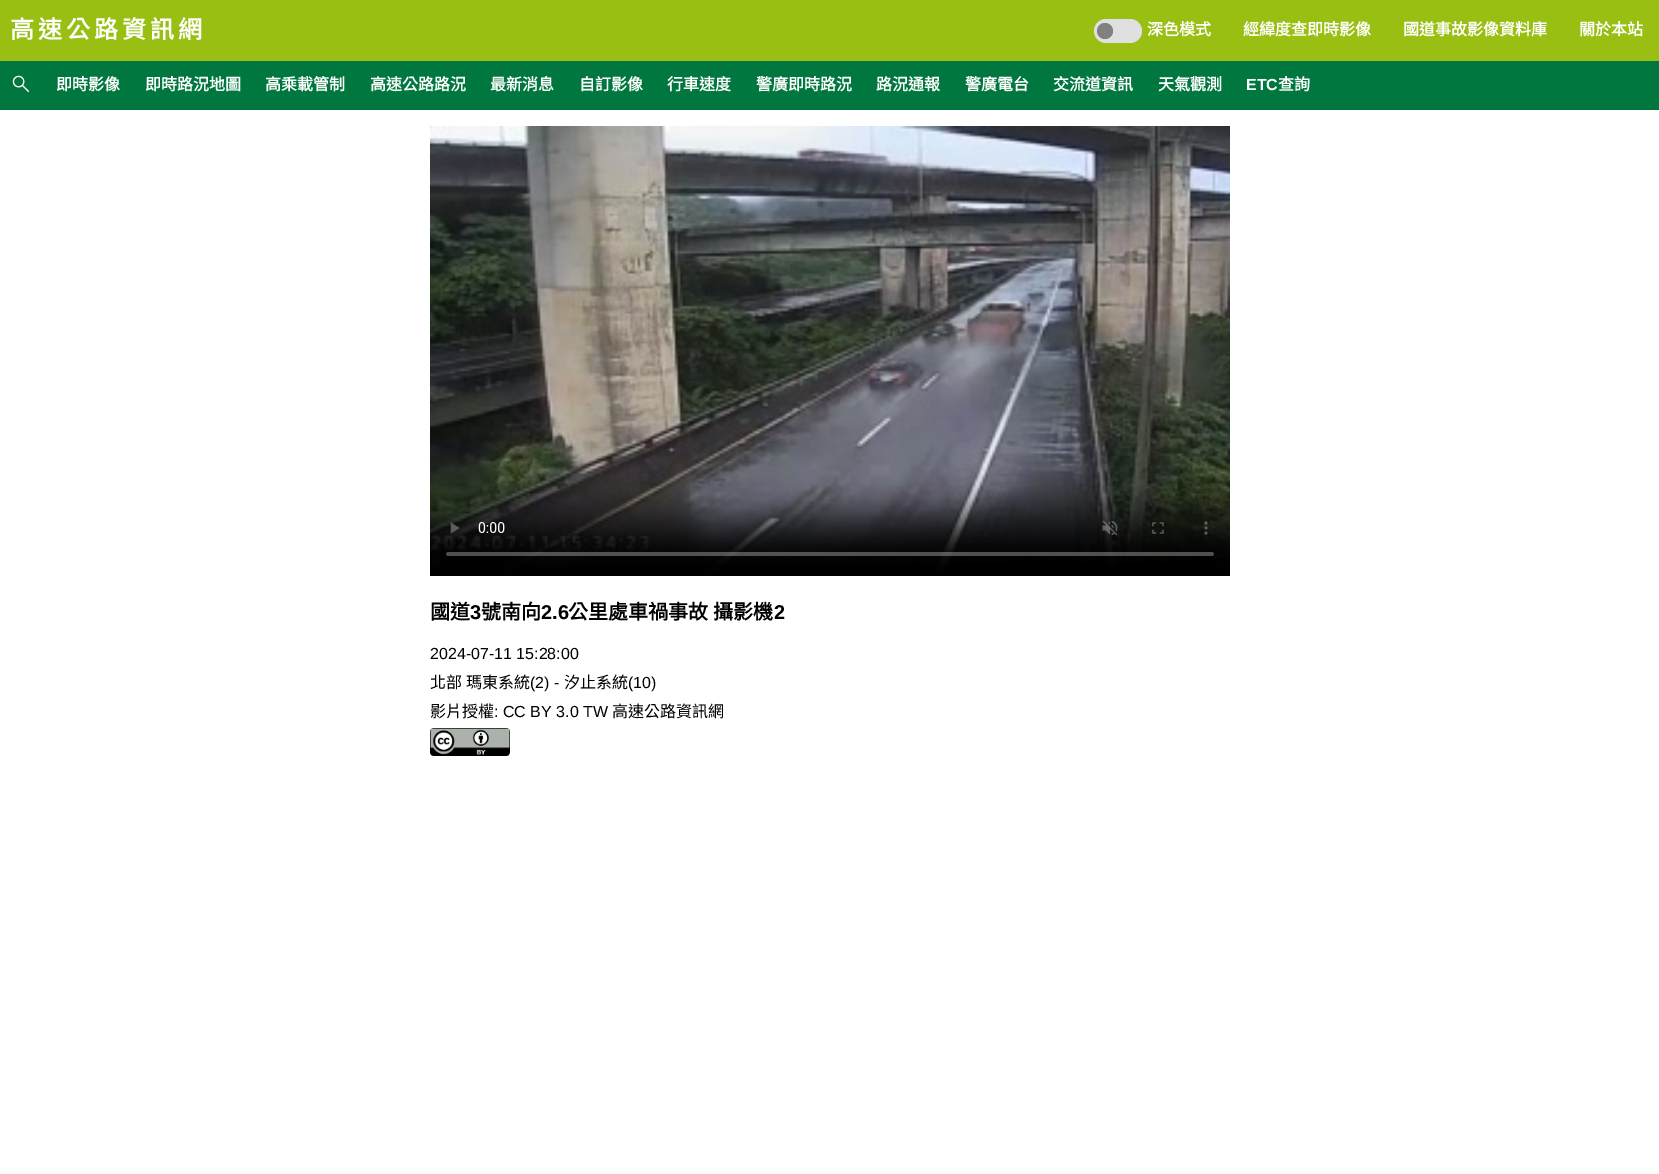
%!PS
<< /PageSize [1659 1174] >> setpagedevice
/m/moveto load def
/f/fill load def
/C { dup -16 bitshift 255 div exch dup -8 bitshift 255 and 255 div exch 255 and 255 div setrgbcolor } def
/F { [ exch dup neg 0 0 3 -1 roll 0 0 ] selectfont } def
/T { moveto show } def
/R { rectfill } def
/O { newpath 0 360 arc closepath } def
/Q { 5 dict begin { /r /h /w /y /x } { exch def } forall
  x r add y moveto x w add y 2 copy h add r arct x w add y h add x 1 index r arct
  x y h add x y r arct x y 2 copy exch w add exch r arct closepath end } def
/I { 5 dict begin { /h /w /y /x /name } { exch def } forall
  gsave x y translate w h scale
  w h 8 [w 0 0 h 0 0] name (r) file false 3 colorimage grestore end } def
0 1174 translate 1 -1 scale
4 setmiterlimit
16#FFFFFF C
0 0 1659 1174 R
16#98BF11 C
0 0 1659 61 R
/NotoSansCJKTC-Bold 24 F
16#FFFFFF C
10 38 m 4 0 (高速公路資訊網) ashow
16#E0E0E0 C
1094 19 48 24 12 Q f
16#808080 C
1105 31 8 O f
/NotoSansCJKTC-Bold 16 F
16#FFFFFF C
(深色模式) 1147 35 T
(經緯度查即時影像) 1243 35 T
(國道事故影像資料庫) 1403 35 T
(關於本站) 1579 35 T
16#00773E C
0 61 1659 49 R
(1.rgb) 12 75 18 18 I
16#FFFFFF C
(即時影像) 56 90 T
(即時路況地圖) 145 90 T
(高乘載管制) 265 90 T
(高速公路路況) 370 90 T
(最新消息) 490 90 T
(自訂影像) 579 90 T
(行車速度) 667 90 T
(警廣即時路況) 756 90 T
(路況通報) 876 90 T
(警廣電台) 965 90 T
(交流道資訊) 1053 90 T
(天氣觀測) 1158 90 T
/LiberationSans-Bold 16 F
(ETC) 1246 90 T
/NotoSansCJKTC-Bold 16 F
(查詢) 1278 90 T
(2.rgb) 430 126 800 450 I
/NotoSansCJKTC-Bold 20 F
16#000000 C
(國道) 430 619 T
/LiberationSans-Bold 20 F
(3) 470 619 T
/NotoSansCJKTC-Bold 20 F
(號南向) 481 619 T
/LiberationSans-Bold 20 F
(2.6) 541 619 T
/NotoSansCJKTC-Bold 20 F
568 619 m 1 0 32 (公里處車禍事故 攝影機) widthshow
/LiberationSans-Bold 20 F
(2) 774 619 T
/LiberationSans-Regular 16 F
(2024-07-11 15:28:00) 430 659 T
/NotoSansCJKTC-Regular 16 F
(北部) 430 688 T
(瑪東系統) 466 688 T
/LiberationSans-Regular 16 F
(\(2\) -) 530 688 T
/NotoSansCJKTC-Regular 16 F
(汐止系統) 564 688 T
/LiberationSans-Regular 16 F
(\(10\)) 628 688 T
/NotoSansCJKTC-Regular 16 F
(影片授權) 430 717 T
/LiberationSans-Regular 16 F
(: CC BY 3.0 TW) 494 717 T
/NotoSansCJKTC-Regular 16 F
(高速公路資訊網) 612 717 T
(3.rgb) 430 728 80 28 I
showpage
